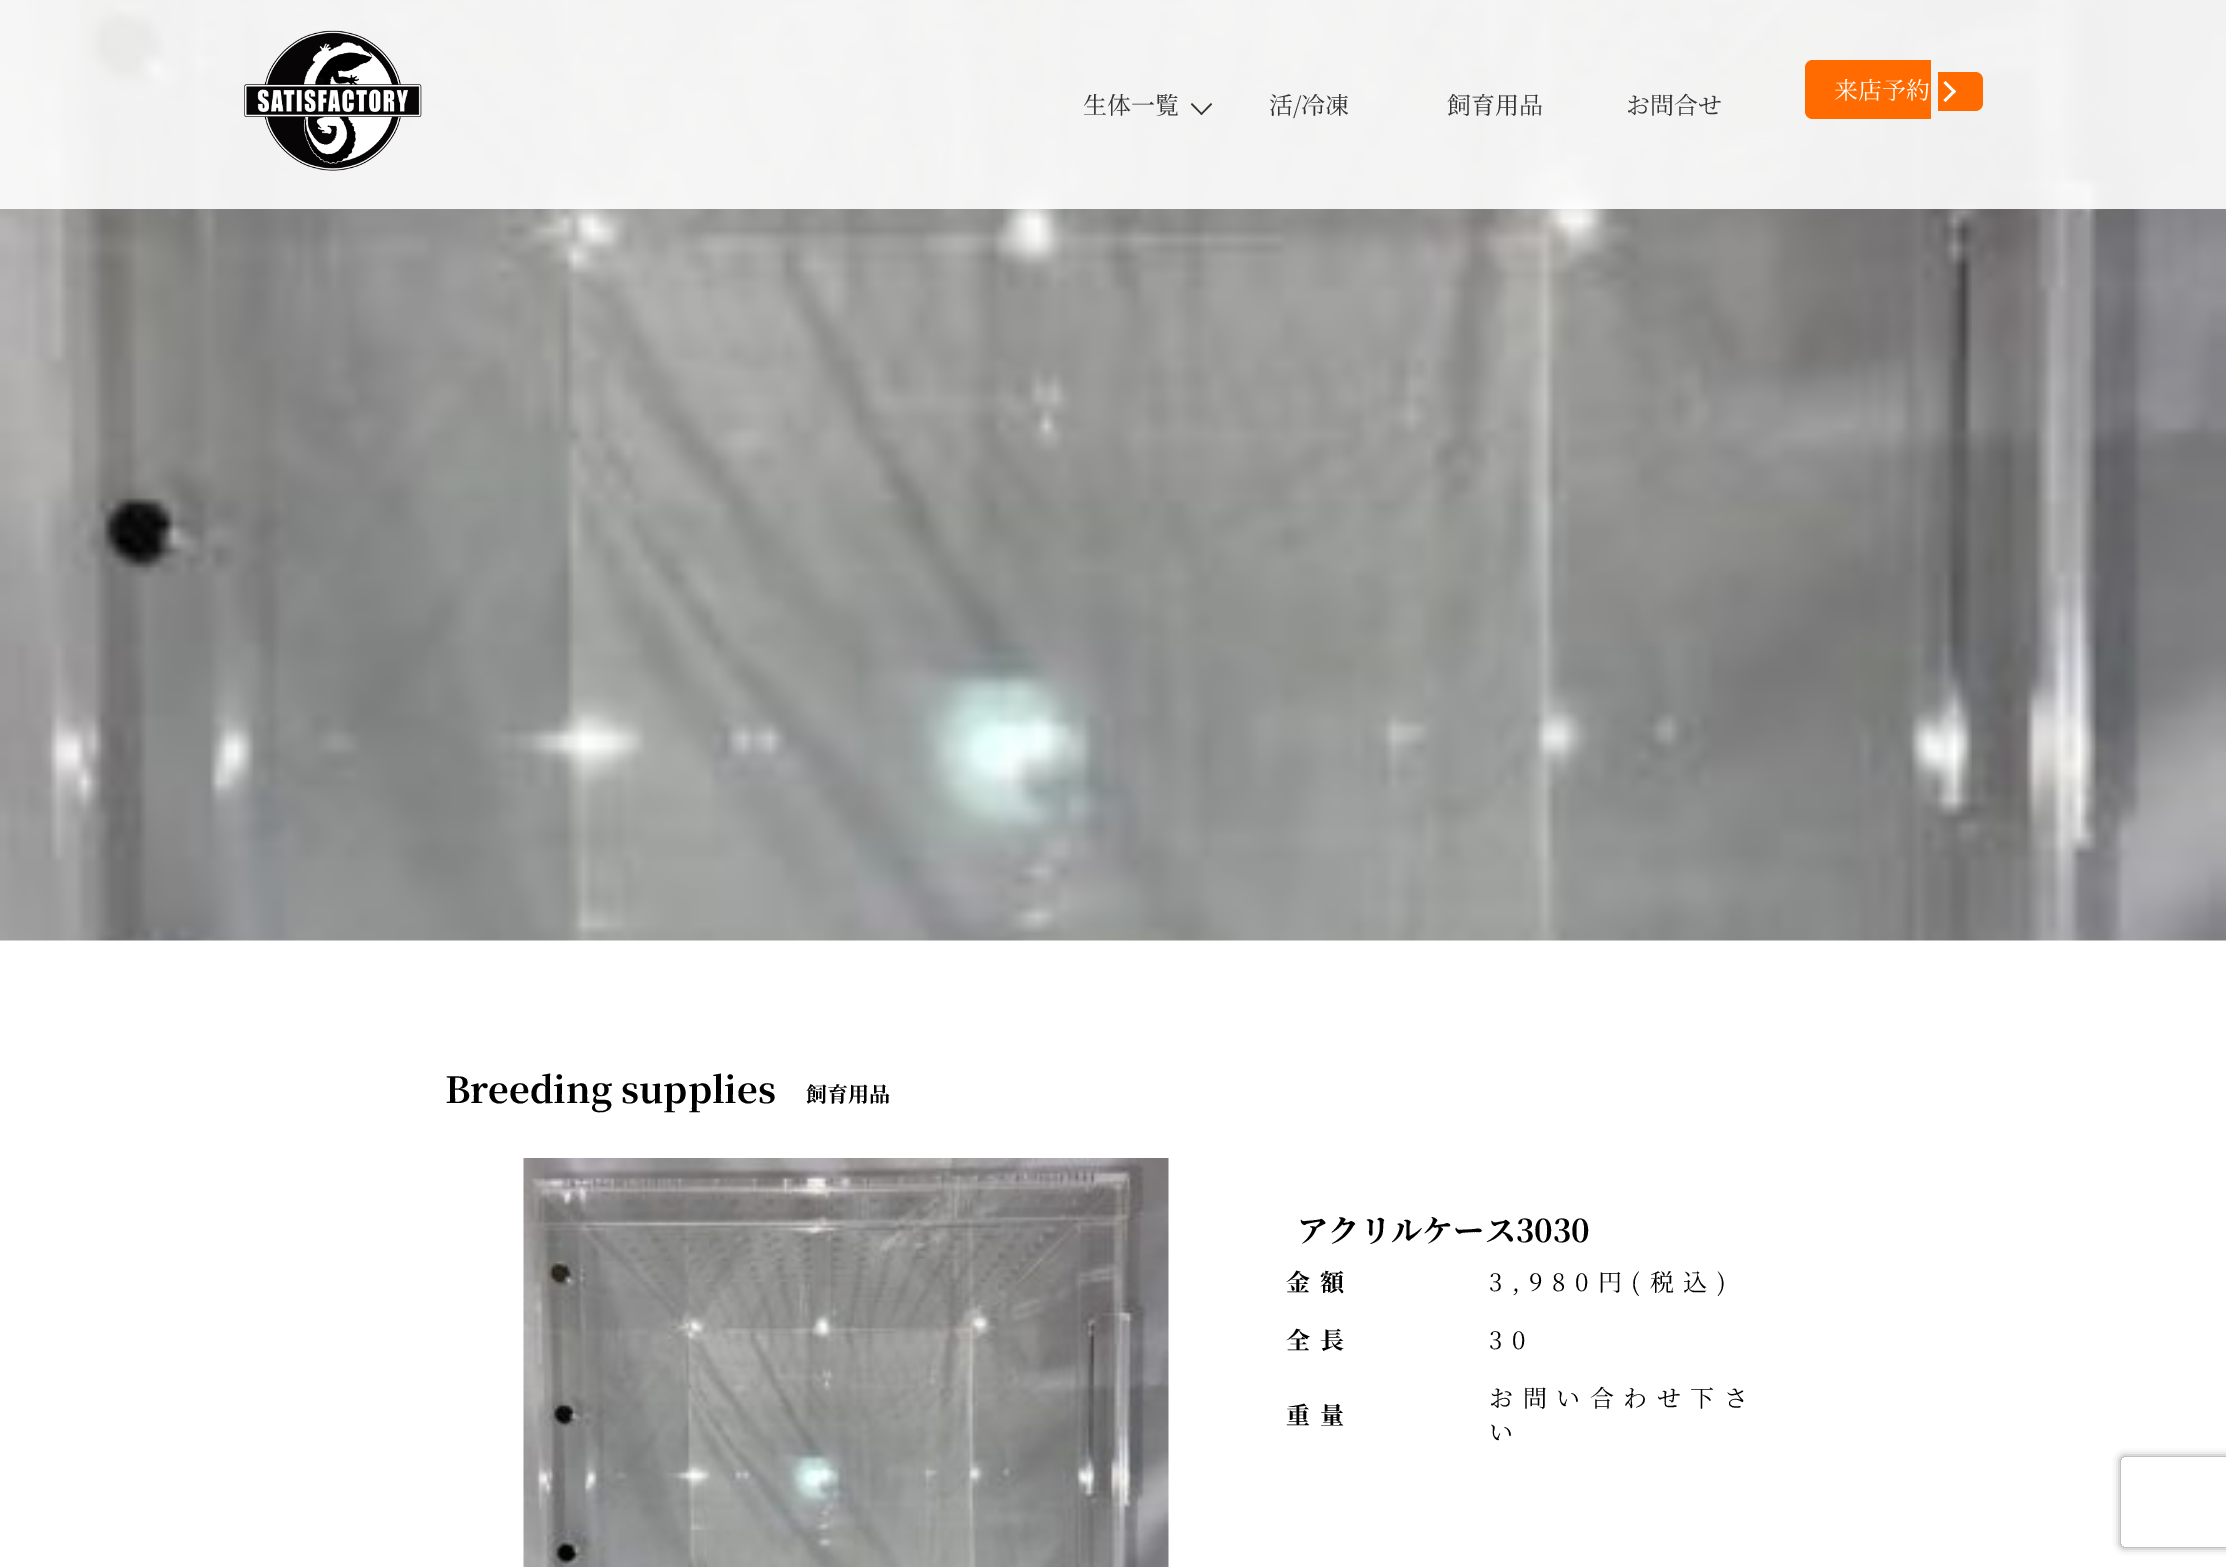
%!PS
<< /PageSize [2226 1567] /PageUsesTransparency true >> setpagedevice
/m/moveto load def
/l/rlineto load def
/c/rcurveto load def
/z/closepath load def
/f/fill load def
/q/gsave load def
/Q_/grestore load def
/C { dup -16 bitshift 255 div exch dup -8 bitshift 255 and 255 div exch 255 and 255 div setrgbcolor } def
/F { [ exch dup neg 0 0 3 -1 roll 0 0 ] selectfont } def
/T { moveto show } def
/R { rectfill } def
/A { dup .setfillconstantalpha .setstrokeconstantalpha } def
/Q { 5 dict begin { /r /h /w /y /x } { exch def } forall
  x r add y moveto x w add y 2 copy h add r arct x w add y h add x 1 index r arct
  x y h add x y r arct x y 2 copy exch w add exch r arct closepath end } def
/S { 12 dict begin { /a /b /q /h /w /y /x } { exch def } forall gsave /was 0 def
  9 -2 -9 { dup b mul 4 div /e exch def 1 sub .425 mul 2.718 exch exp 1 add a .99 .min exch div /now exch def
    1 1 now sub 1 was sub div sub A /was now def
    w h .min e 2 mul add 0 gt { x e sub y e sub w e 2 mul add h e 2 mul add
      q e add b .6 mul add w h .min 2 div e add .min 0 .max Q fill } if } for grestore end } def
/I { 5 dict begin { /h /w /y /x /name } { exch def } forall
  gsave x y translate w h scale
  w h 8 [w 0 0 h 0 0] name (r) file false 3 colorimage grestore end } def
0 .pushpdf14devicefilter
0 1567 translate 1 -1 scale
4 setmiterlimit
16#FFFFFF C
0 0 2226 1567 R
(2.rgb) 0 0 2226 941 I
0.9 A
0 0 2226 209 R
1 A
(1.rgb) 244 30 178 141 I
/NotoSerifJP-Regular 24 F
16#333333 C
(生体一覧) 1083 114 T
1211 103 m 1 1.5 l -10.5 10.5 l -1 -1 l z f
1192 103 m 10.5 11 l -1 1 l -10.5 -10.5 l z f
16#FF6B00 C
1813 60 m 118 0 l 0 59 l -118 0 l -4.5 0 -8 -3.5 -8 -8 c 0 -43 l 0 -4.5 3.5 -8 8 -8 c z f
1938 72 m 37 0 l 4.5 0 8 3.5 8 8 c 0 23 l 0 4.5 -3.5 8 -8 8 c -37 0 l z f
16#FFFFFF C
(来店予約) 1834 99 T
1943.5 83 m 2 -2 l 10.5 10.5 l -2 2 l z f
1943.5 100 m 10.5 -10.5 l 2 2 l -10.5 10.5 l z f
16#333333 C
(活/冷凍) 1269 114 T
(飼育用品) 1447 114 T
(お問合せ) 1626 114 T
/NotoSerifJP-Bold 36 F
16#000000 C
(Breeding supplies) 445 1103 T
/NotoSerifJP-Bold 21 F
(飼育用品) 806 1102 T
(3.rgb) 523 1158 646 409 I
/NotoSerifJP-Bold 31.25 F
(アクリルケース3030) 1297 1242 T
/NotoSerifJP-Bold 24 F
1286 1291 m 9.5 0 (金額) ashow
/NotoSerifJP-Regular 24 F
1489 1291 m 9.5 0 (3,980円\(税込\)) ashow
/NotoSerifJP-Bold 24 F
1286 1349 m 9.5 0 (全長) ashow
/NotoSerifJP-Regular 24 F
1489 1349 m 9.5 0 (30) ashow
/NotoSerifJP-Bold 24 F
1286 1424 m 9.5 0 (重量) ashow
/NotoSerifJP-Regular 24 F
1489 1407 m 9.5 0 (お問い合わせ下さ) ashow
1489 1441 m 9.5 0 (い) ashow
q
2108 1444 m 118 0 l 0 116 l -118 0 l z 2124 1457 m 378 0 l 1.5 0 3 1.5 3 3 c 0 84 l 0 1.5 -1.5 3 -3 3 c -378 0 l -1.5 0 -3 -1.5 -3 -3 c 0 -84 l 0 -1.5 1.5 -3 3 -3 c z eoclip newpath
16#808080 C
2121 1457 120 90 3 4 1 S
Q_
.poppdf14devicefilter showpage
